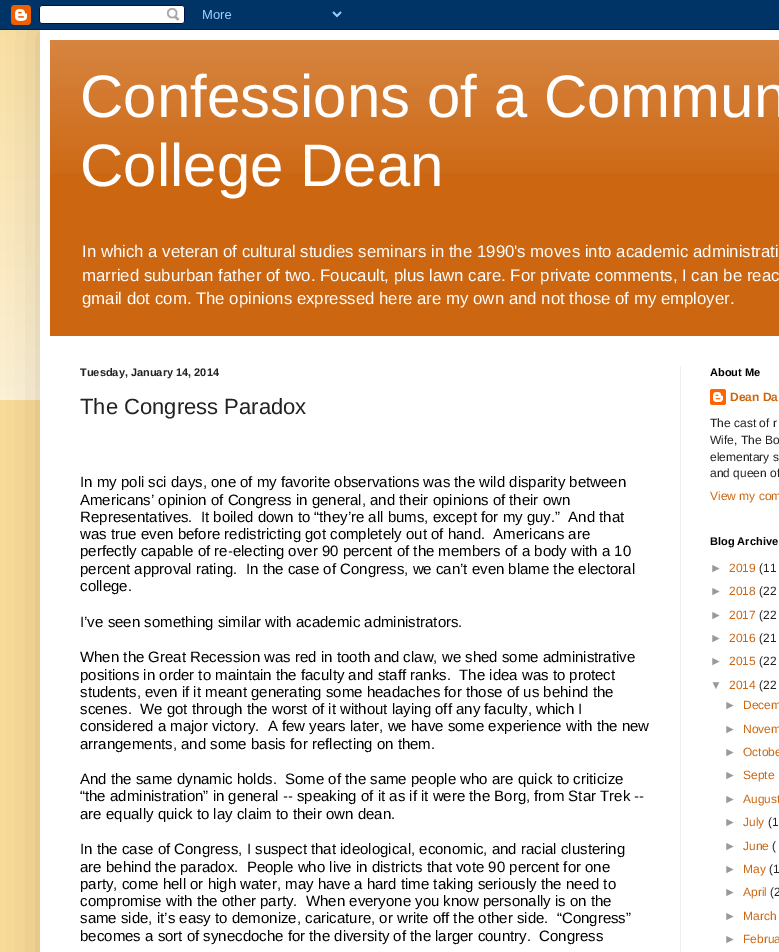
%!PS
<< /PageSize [779 952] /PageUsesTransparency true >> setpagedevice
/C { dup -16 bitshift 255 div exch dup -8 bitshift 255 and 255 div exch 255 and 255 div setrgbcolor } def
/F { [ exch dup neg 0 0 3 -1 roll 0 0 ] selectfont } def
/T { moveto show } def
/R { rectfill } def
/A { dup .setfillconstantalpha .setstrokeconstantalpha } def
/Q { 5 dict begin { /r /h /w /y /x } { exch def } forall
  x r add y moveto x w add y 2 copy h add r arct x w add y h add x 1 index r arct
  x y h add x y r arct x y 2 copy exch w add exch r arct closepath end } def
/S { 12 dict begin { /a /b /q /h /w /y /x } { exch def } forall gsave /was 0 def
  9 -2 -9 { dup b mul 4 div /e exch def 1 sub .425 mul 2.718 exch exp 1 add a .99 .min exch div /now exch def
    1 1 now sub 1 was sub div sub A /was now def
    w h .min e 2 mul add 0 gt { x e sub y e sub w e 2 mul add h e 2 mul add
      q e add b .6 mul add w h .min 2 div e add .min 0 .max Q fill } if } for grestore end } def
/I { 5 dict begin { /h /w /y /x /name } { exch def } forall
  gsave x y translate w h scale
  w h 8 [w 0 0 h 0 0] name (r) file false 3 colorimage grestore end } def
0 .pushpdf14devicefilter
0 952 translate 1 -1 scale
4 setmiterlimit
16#F9DC99 C
0 0 779 952 R
(2.rgb) 0 30 40 370 I
16#000000 C
40 30 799 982 0 20 .15 S
(1.rgb) 0 0 779 30 I
16#FFFFFF C
40 30 739 922 R
16#CC6611 C
50 40 729 296 R
(3.rgb) 50 40 729 133 I
/LiberationSans-Regular 60 F
16#FFFFFF C
(Confessions of a Commun) 80 117 T
(College Dean) 80 186 T
/LiberationSans-Regular 16.8 F
(In which a veteran of cultural studies seminars in the 1990's moves into academic administrati) 82 257 T
(married suburban father of two. Foucault, plus lawn care. For private comments, I can be reac) 82 281 T
(gmail dot com. The opinions expressed here are my own and not those of my employer.) 82 304 T
16#EEEEEE C
680 366 1 586 R
/LiberationSans-Bold 11 F
16#222222 C
(Tuesday, January 14, 2014) 80 376 T
/LiberationSans-Regular 22 F
(The Congress Paradox) 80 414 T
/LiberationSans-Regular 15 F
16#000000 C
(In my poli sci days, one of my favorite observations was the wild disparity between) 80 487 T
(Americans’ opinion of Congress in general, and their opinions of their own) 80 505 T
(Representatives.  It boiled down to “they’re all bums, except for my guy.”  And that) 80 522 T
(was true even before redistricting got completely out of hand.  Americans are) 80 539 T
(perfectly capable of re-electing over 90 percent of the members of a body with a 10) 80 556 T
(percent approval rating.  In the case of Congress, we can’t even blame the electoral) 80 574 T
(college.) 80 591 T
(I’ve seen something similar with academic administrators.) 80 627 T
(When the Great Recession was red in tooth and claw, we shed some administrative) 80 662 T
(positions in order to maintain the faculty and staff ranks.  The idea was to protect) 80 680 T
(students, even if it meant generating some headaches for those of us behind the) 80 697 T
(scenes.  We got through the worst of it without laying off any faculty, which I) 80 714 T
(considered a major victory.  A few years later, we have some experience with the new) 80 731 T
(arrangements, and some basis for reflecting on them.) 80 749 T
(And the same dynamic holds.  Some of the same people who are quick to criticize) 80 784 T
(“the administration” in general -- speaking of it as if it were the Borg, from Star Trek --) 80 801 T
(are equally quick to lay claim to their own dean.) 80 819 T
(In the case of Congress, I suspect that ideological, economic, and racial clustering) 80 854 T
(are behind the paradox.  People who live in districts that vote 90 percent for one) 80 872 T
(party, come hell or high water, may have a hard time taking seriously the need to) 80 889 T
(compromise with the other party.  When everyone you know personally is on the) 80 906 T
(same side, it’s easy to demonize, caricature, or write off the other side.  “Congress”) 80 923 T
(becomes a sort of synecdoche for the diversity of the larger country.  Congress) 80 941 T
/LiberationSans-Bold 11 F
(About Me) 710 376 T
(4.rgb) 710 389 16 16 I
/LiberationSans-Bold 12 F
16#CC6611 C
(Dean Da) 730 401 T
/LiberationSans-Regular 12 F
16#222222 C
(The cast of r) 710 427 T
(Wife, The Bo) 710 444 T
(elementary s) 710 461 T
(and queen of) 710 477 T
16#CC6611 C
(View my com) 710 500 T
/LiberationSans-Bold 11 F
16#000000 C
(Blog Archive) 710 545 T
/LiberationSans-Regular 12 F
16#999999 C
(►) 710 572 T
16#CC6611 C
(2019) 729 572 T
16#222222 C
(\(11) 759 572 T
16#999999 C
(►) 710 595 T
16#CC6611 C
(2018) 729 595 T
16#222222 C
(\(22) 759 595 T
16#999999 C
(►) 710 619 T
16#CC6611 C
(2017) 729 619 T
16#222222 C
(\(22) 759 619 T
16#999999 C
(►) 710 642 T
16#CC6611 C
(2016) 729 642 T
16#222222 C
(\(21) 759 642 T
16#999999 C
(►) 710 665 T
16#CC6611 C
(2015) 729 665 T
16#222222 C
(\(22) 759 665 T
16#999999 C
(▼) 710 689 T
16#CC6611 C
(2014) 729 689 T
16#222222 C
(\(22) 759 689 T
16#999999 C
(►) 724 709 T
16#CC6611 C
(Decem) 743 709 T
16#999999 C
(►) 724 733 T
16#CC6611 C
(Novem) 743 733 T
16#999999 C
(►) 724 756 T
16#CC6611 C
(Octobe) 743 756 T
16#999999 C
(►) 724 779 T
16#CC6611 C
(Septe) 743 779 T
16#999999 C
(►) 724 803 T
16#CC6611 C
(August) 743 803 T
16#999999 C
(►) 724 826 T
16#CC6611 C
(July) 743 826 T
16#222222 C
(\(1) 768 826 T
16#999999 C
(►) 724 850 T
16#CC6611 C
(June) 743 850 T
16#222222 C
(\() 772 850 T
16#999999 C
(►) 724 873 T
16#CC6611 C
(May) 743 873 T
16#222222 C
(\(1) 769 873 T
16#999999 C
(►) 724 896 T
16#CC6611 C
(April) 743 896 T
16#222222 C
(\(2) 770 896 T
16#999999 C
(►) 724 920 T
16#CC6611 C
(March) 743 920 T
16#999999 C
(►) 724 943 T
16#CC6611 C
(Februa) 743 943 T
.poppdf14devicefilter showpage
